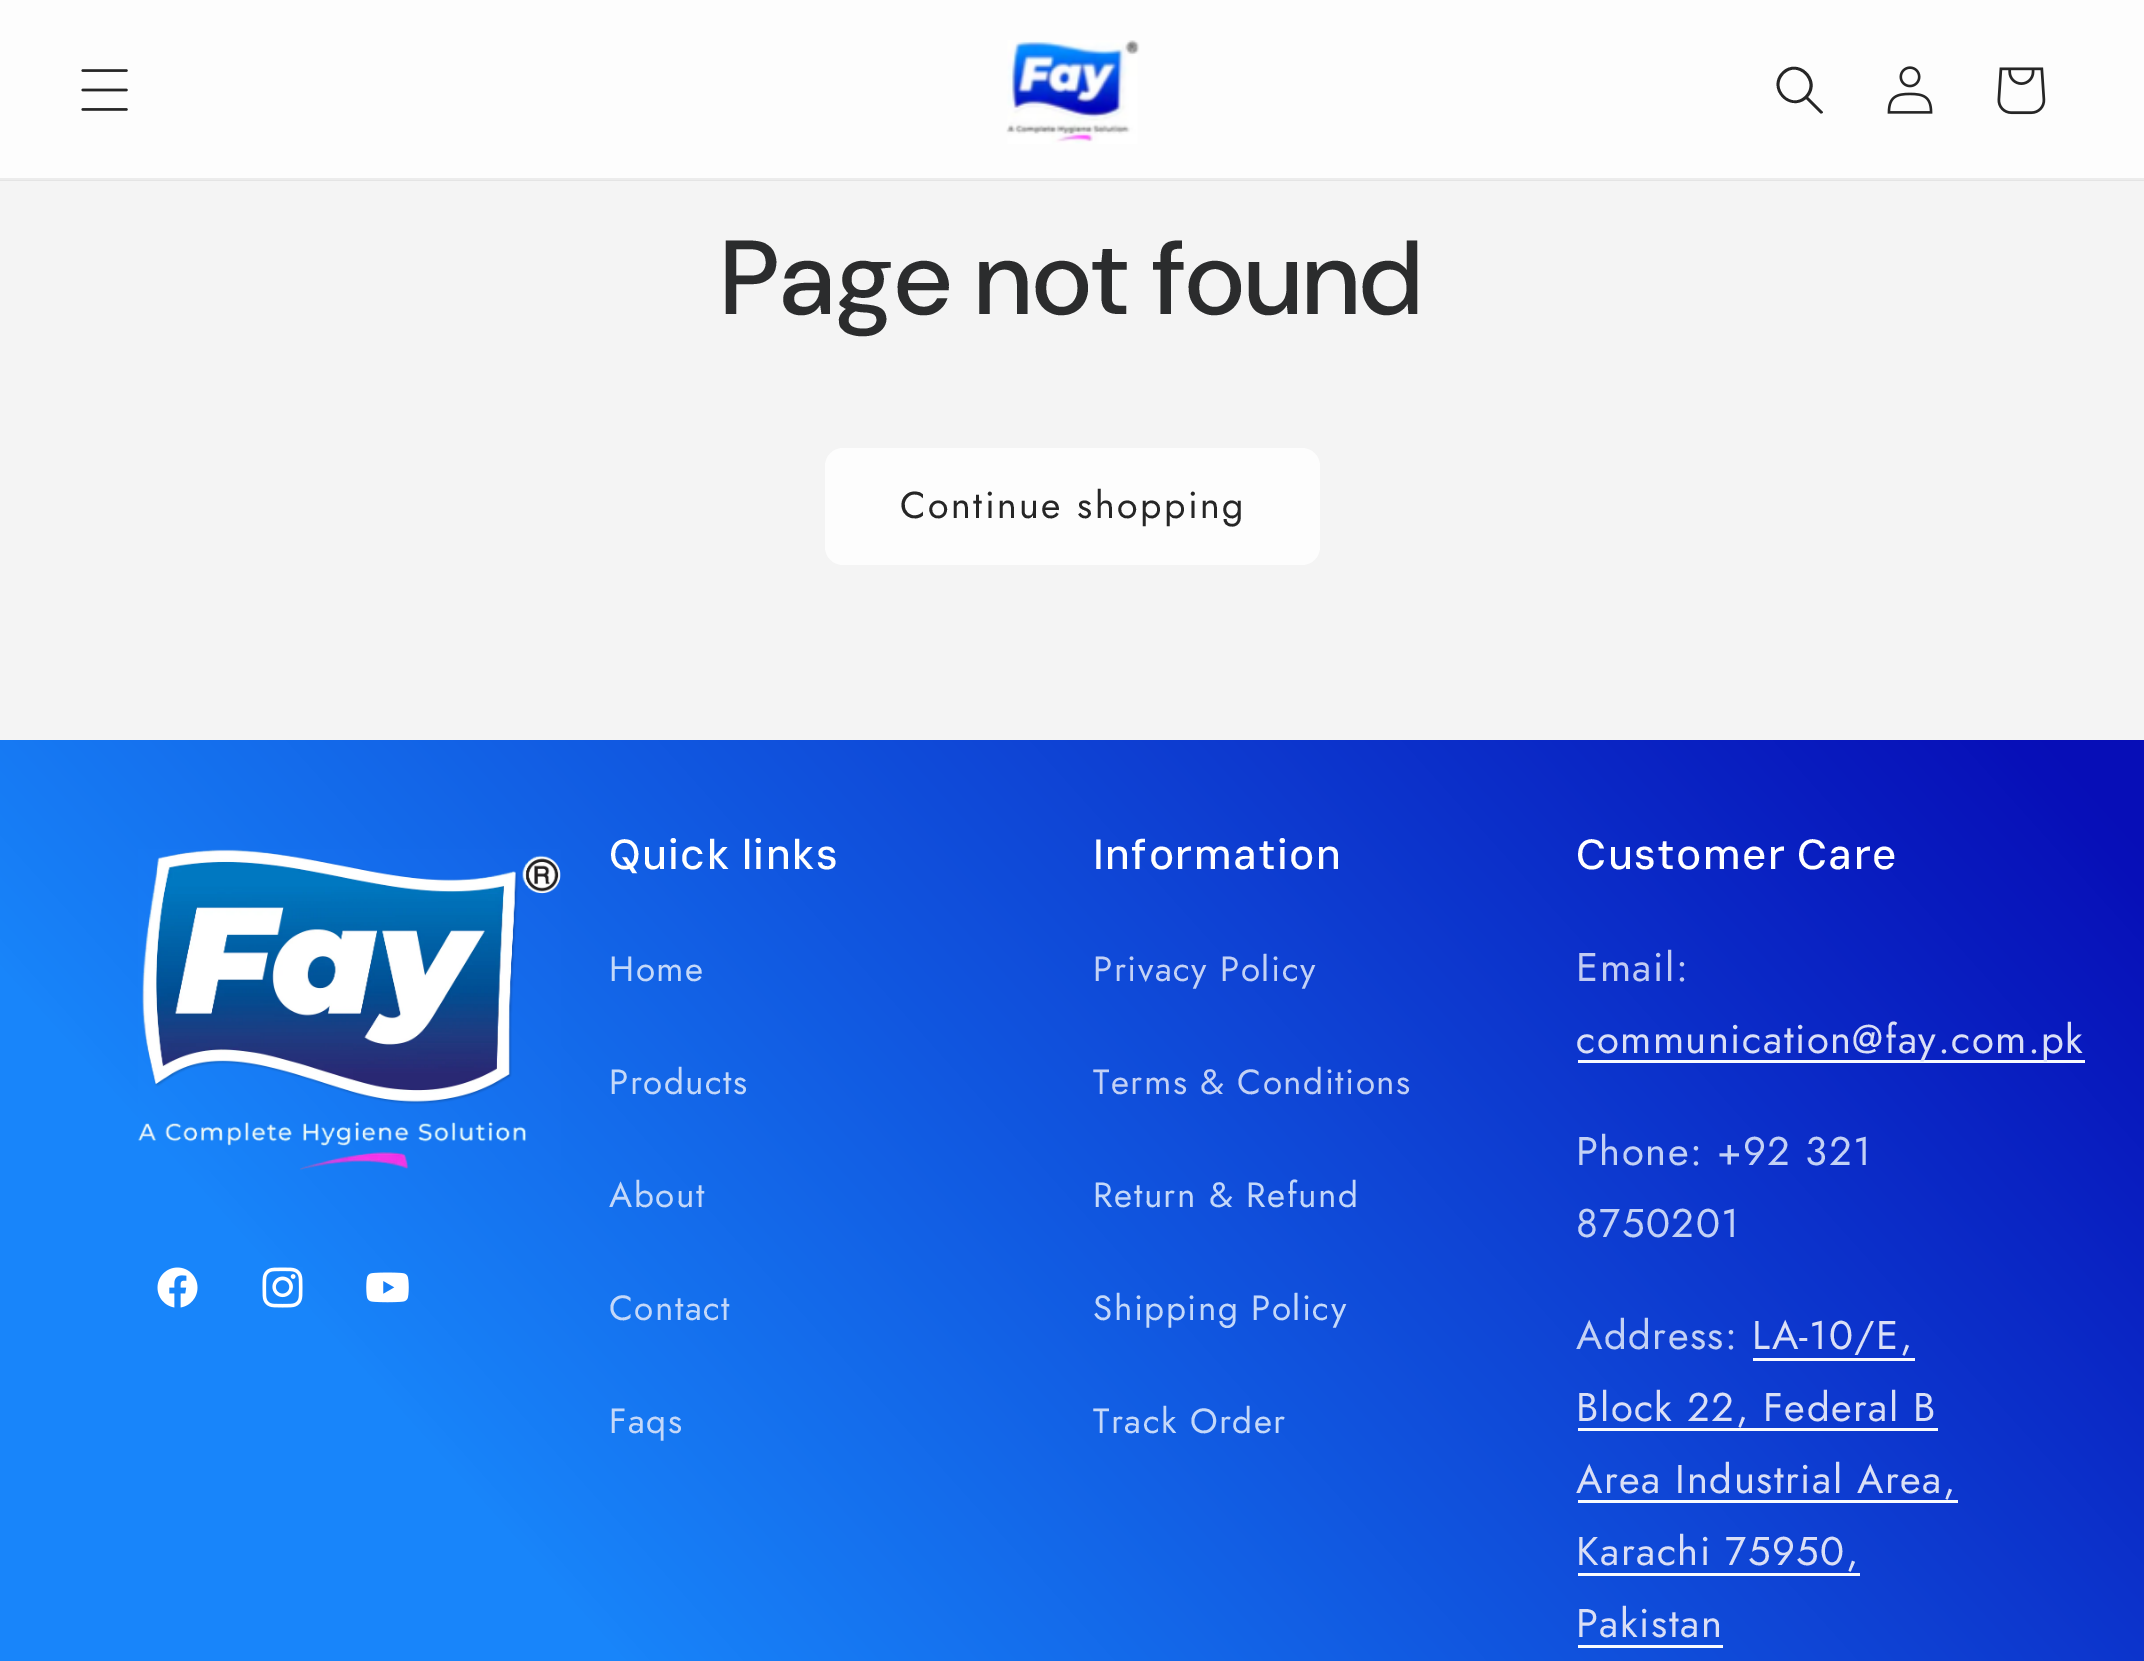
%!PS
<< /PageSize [2144 1661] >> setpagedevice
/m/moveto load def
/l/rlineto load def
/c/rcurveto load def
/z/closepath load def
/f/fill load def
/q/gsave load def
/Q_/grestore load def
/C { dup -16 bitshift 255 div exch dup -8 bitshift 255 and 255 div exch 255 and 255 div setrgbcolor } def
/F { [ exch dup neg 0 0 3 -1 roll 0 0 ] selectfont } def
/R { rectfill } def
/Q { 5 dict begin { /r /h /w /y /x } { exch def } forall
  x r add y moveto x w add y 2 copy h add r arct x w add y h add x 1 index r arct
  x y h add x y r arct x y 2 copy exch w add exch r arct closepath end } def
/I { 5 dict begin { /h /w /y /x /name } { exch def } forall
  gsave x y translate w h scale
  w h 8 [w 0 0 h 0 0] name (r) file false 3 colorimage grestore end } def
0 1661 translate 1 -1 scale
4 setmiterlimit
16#F4F4F4 C
0 0 2144 1661 R
16#E4E4E4 C
0 180 2144 1 R
16#FDFDFD C
0 0 2144 178 R
16#ECECEC C
0 178 2144 2 R
(1.rgb) 81 69 47 42 I
(2.rgb) 1006 40 134 104 I
16#262626 C
1805 96 m -14 14 -35 -8 -21 -22 c 14 -14 35 8 21 22 c 1806 99 m -17 14 -40 -11 -24 -27 c 16 -16 41 8 26 25 c 15 15 l 0 1 -2 2 -3 1 c z eofill
(3.rgb) 1887 66 46 48 I
(4.rgb) 1997 67 49 48 I
/DMSans-Medium 105 F
16#2B2C2D C
721 314 m 1.5 0 (Page not found) ashow
16#FDFDFD C
825 448 495 117 18 Q f
/Jost-Regular 37.5 F
16#262626 C
900 518 m 2.5 0 (Continue shopping) ashow
q 0 740 m 2144 0 l 0 921 l -2144 0 l z clip newpath
<< /ShadingType 2 /ColorSpace /DeviceRGB /Coords [2078 -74 67 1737] /Extend [true true] /Function << /FunctionType 3 /Domain [0 1] /Functions [<< /FunctionType 2 /Domain [0 1] /C0 [.027 .055 .718] /C1 [.027 .055 .718] /N 1 >> << /FunctionType 2 /Domain [0 1] /C0 [.027 .055 .718] /C1 [.094 .522 .98] /N 1 >> << /FunctionType 2 /Domain [0 1] /C0 [.094 .522 .98] /C1 [.094 .522 .98] /N 1 >>] /Bounds [.21 .83] /Encode [0 1 0 1 0 1] >> >> shfill Q_
q 1578 1500 m 380 0 l 0 3 l -380 0 l z clip newpath
<< /ShadingType 2 /ColorSpace /DeviceRGB /Coords [2078 -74 67 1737] /Extend [true true] /Function << /FunctionType 3 /Domain [0 1] /Functions [<< /FunctionType 2 /Domain [0 1] /C0 [.976 .98 .992] /C1 [.976 .98 .992] /N 1 >> << /FunctionType 2 /Domain [0 1] /C0 [.976 .98 .992] /C1 [.98 .988 1] /N 1 >> << /FunctionType 2 /Domain [0 1] /C0 [.98 .988 1] /C1 [.98 .988 1] /N 1 >>] /Bounds [.21 .83] /Encode [0 1 0 1 0 1] >> >> shfill Q_
q 1578 1428 m 360 0 l 0 3 l -360 0 l z clip newpath
<< /ShadingType 2 /ColorSpace /DeviceRGB /Coords [2078 -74 67 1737] /Extend [true true] /Function << /FunctionType 3 /Domain [0 1] /Functions [<< /FunctionType 2 /Domain [0 1] /C0 [.976 .98 .992] /C1 [.976 .98 .992] /N 1 >> << /FunctionType 2 /Domain [0 1] /C0 [.976 .98 .992] /C1 [.98 .988 1] /N 1 >> << /FunctionType 2 /Domain [0 1] /C0 [.98 .988 1] /C1 [.98 .988 1] /N 1 >>] /Bounds [.21 .83] /Encode [0 1 0 1 0 1] >> >> shfill Q_
q 1578 1060 m 507 0 l 0 3 l -507 0 l z clip newpath
<< /ShadingType 2 /ColorSpace /DeviceRGB /Coords [2078 -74 67 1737] /Extend [true true] /Function << /FunctionType 3 /Domain [0 1] /Functions [<< /FunctionType 2 /Domain [0 1] /C0 [.976 .98 .992] /C1 [.976 .98 .992] /N 1 >> << /FunctionType 2 /Domain [0 1] /C0 [.976 .98 .992] /C1 [.98 .988 1] /N 1 >> << /FunctionType 2 /Domain [0 1] /C0 [.98 .988 1] /C1 [.98 .988 1] /N 1 >>] /Bounds [.21 .83] /Encode [0 1 0 1 0 1] >> >> shfill Q_
(5.rgb) 138 849 423 321 I
(6.rgb) 157 1267 41 41 I
(7.rgb) 262 1267 41 41 I
(8.rgb) 366 1272 43 31 I
/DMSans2-Medium 42 F
16#FFFFFF C
609 869 m -1 0 32 1.5 0 (Quick links) awidthshow
/Jost-Regular 35 F
16#C4D8F9 C
609 981 m 1.5 0 (Home) ashow
609 1094 m 1.5 0 (Products) ashow
609 1207 m 1.5 0 (About) ashow
609 1320 m 1.5 0 (Contact) ashow
609 1433 m 1.5 0 (Faqs) ashow
/DMSans2-Medium 42 F
16#FFFFFF C
1093 869 m 1.5 0 (Information) ashow
/Jost-Regular 35 F
16#C3D1F5 C
1093 981 m 1.5 0 (Privacy Policy) ashow
1093 1094 m 1.5 0 (Terms & Conditions) ashow
16#C4D8F9 C
1093 1207 m 1.5 0 (Return & Refund) ashow
1093 1320 m 1.5 0 (Shipping Policy) ashow
1093 1433 m 1.5 0 (Track Order) ashow
/DMSans2-Medium 42 F
16#FFFFFF C
1576 869 m -2 0 32 1.5 0 (Customer Care) awidthshow
/Jost-Regular 40 F
16#C2CBF2 C
1576 981 m 1.5 0 (Email:) ashow
16#DADFF6 C
1576 1053 m 1.5 0 (communication@fay.com.pk) ashow
16#C3D1F5 C
1576 1165 m 1.5 0 (Phone: +92 321) ashow
1576 1237 m 1.5 0 (8750201) ashow
1576 1349 m 1.5 0 (Address:) ashow
16#DADFF6 C
1752 1349 m 1.5 0 (LA-10/E,) ashow
16#FAFAFE C
1753 1358 162 3 R
16#DADFF6 C
1576 1421 m 1.5 0 (Block 22, Federal B) ashow
1576 1493 m 1.5 0 (Area Industrial Area,) ashow
1576 1565 m 1.5 0 (Karachi 75950,) ashow
16#FAFBFE C
1578 1573 282 3 R
16#DADFF6 C
1576 1637 m 1.5 0 (Pakistan) ashow
16#FAFBFE C
1578 1645 145 3 R
showpage
